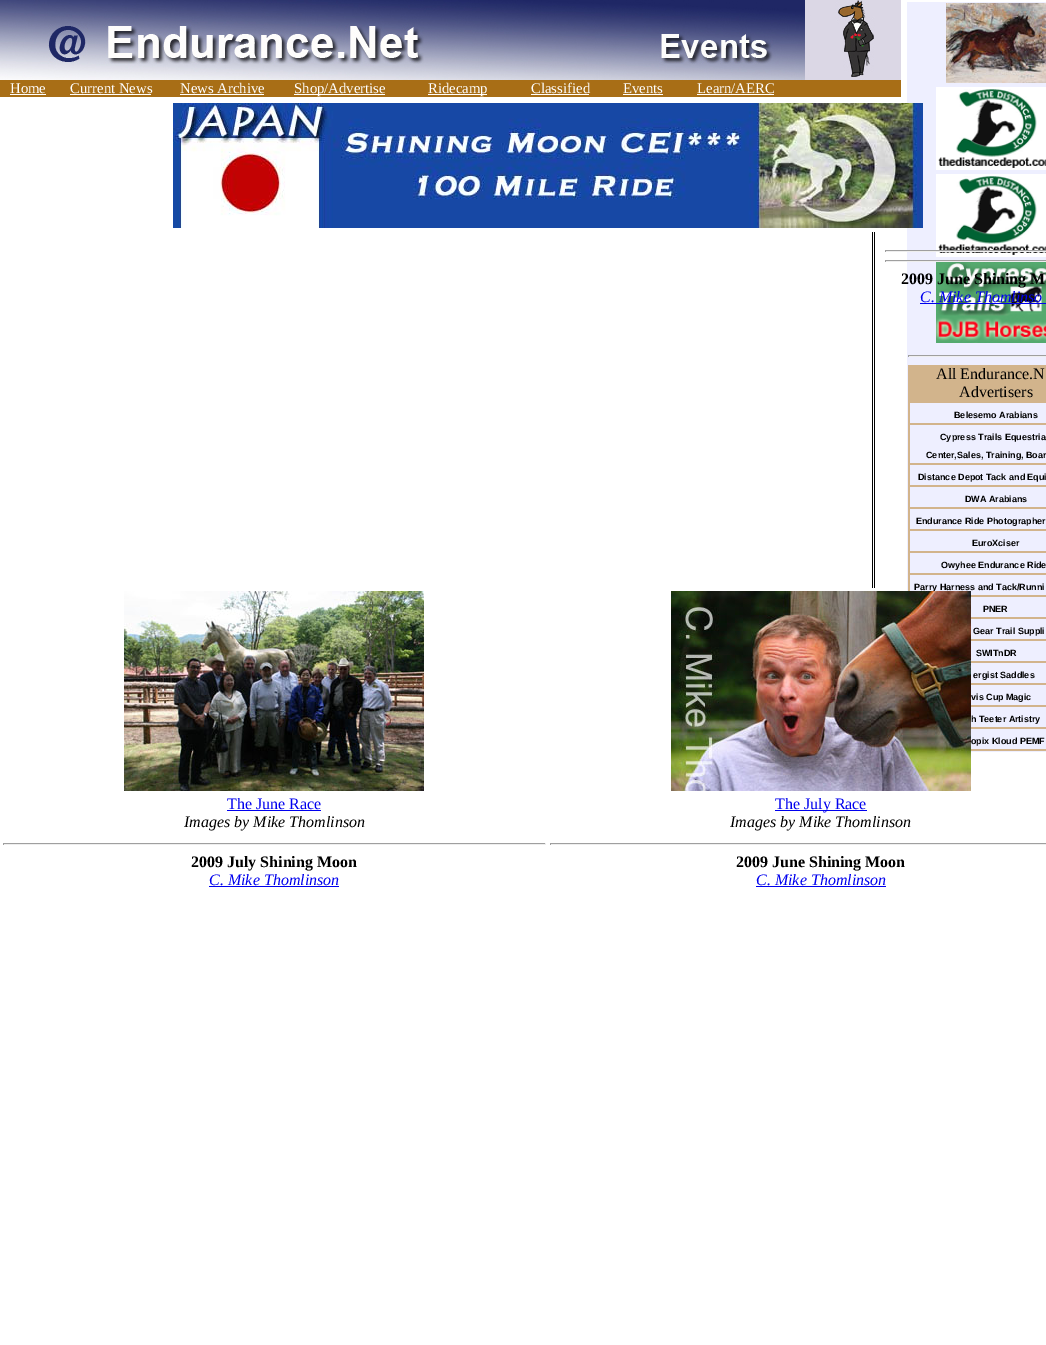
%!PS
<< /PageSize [1046 1345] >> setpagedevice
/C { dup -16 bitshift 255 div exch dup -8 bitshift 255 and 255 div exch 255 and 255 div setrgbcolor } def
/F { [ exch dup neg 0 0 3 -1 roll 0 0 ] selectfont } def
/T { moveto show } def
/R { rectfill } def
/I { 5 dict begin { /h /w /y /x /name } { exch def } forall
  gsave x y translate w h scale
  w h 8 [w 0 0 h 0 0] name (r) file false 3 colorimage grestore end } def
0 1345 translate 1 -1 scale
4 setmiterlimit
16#FFFFFF C
0 0 1046 1345 R
(1.rgb) 0 0 587 80 I
(2.rgb) 587 0 314 80 I
16#A86E16 C
0 80 901 17 R
/LiberationSerif-Regular 14.75 F
16#FFFFFF C
(Home) 10 93 T
10 94 36 1 R
(Current News) 70 93 T
70 94 81 1 R
(News Archive) 180 93 T
180 94 84 1 R
294 94 91 1 R
(Shop/Advertise) 294 93 T
428 94 59 1 R
(Ridecamp) 428 93 T
(Classified) 531 93 T
531 94 58 1 R
(Events) 623 93 T
623 94 40 1 R
(Learn/AERC) 697 93 T
697 94 77 1 R
16#EEEFFF C
907 2 139 750 R
(3.rgb) 173 103 750 125 I
16#000000 C
872 232 1 356 R
874 232 1 356 R
(7.rgb) 936 174 110 83 I
16#9F9F9F C
885 250 161 1 R
16#EEEEEE C
885 251 161 1 R
16#9F9F9F C
885 250 1 2 R
885 260 161 1 R
16#EEEEEE C
885 261 161 1 R
16#9F9F9F C
885 260 1 2 R
(8.rgb) 936 262 110 81 I
/LiberationSerif-Bold 16 F
16#000000 C
(2009 June Shining M) 901 284 T
/LiberationSerif-Italic 16 F
16#0000EE C
(C. Mike Thomlinso) 920 302 T
920 303 126 1 R
(4.rgb) 124 591 300 200 I
/LiberationSerif-Regular 16 F
(The June Race) 227 809 T
227 810 94 1 R
/LiberationSerif-Italic 16 F
16#000000 C
(Images by Mike Thomlinson) 184 827 T
16#D2B48C C
908 365 138 386 R
16#EEEFFF C
910 575 136 20 R
/LiberationSans-Bold 9 F
16#000000 C
(Parry Harness and Tack/Runni) 914 590 T
(5.rgb) 671 591 300 200 I
16#0000EE C
775 810 92 1 R
/LiberationSerif-Regular 16 F
(The July Race) 775 809 T
/LiberationSerif-Italic 16 F
16#000000 C
(Images by Mike Thomlinson) 730 827 T
16#9F9F9F C
3 843 543 1 R
16#EEEEEE C
545 843 1 2 R
3 844 543 1 R
16#9F9F9F C
3 843 1 2 R
/LiberationSerif-Bold 16 F
16#000000 C
(2009 July Shining Moon) 191 867 T
/LiberationSerif-Italic 16 F
16#0000EE C
(C. Mike Thomlinson) 209 885 T
209 886 130 1 R
16#9F9F9F C
550 843 496 1 R
16#EEEEEE C
550 844 496 1 R
16#9F9F9F C
550 843 1 2 R
/LiberationSerif-Bold 16 F
16#000000 C
(2009 June Shining Moon) 736 867 T
/LiberationSerif-Italic 16 F
16#0000EE C
(C. Mike Thomlinson) 756 885 T
756 886 130 1 R
(6.rgb) 946 3 100 80 I
(7.rgb) 936 87 110 83 I
16#9F9F9F C
908 355 138 1 R
16#EEEEEE C
908 356 138 1 R
16#9F9F9F C
908 355 1 2 R
/LiberationSerif-Regular 16 F
16#000000 C
(All Endurance.N) 936 379 T
(Advertisers) 959 397 T
16#EEEFFF C
910 403 136 20 R
/LiberationSans-Bold 9 F
16#000000 C
(Belesemo Arabians) 954 418 T
16#EEEFFF C
910 425 136 38 R
16#000000 C
(Cypress Trails Equestria) 940 440 T
(Center,Sales, Training, Boar) 926 458 T
16#EEEFFF C
910 465 136 20 R
16#000000 C
(Distance Depot Tack and Equi) 918 480 T
16#EEEFFF C
910 487 136 20 R
16#000000 C
(DWA Arabians) 965 502 T
16#EEEFFF C
910 509 136 20 R
16#000000 C
(Endurance Ride Photographer) 916 524 T
16#EEEFFF C
910 531 136 20 R
16#000000 C
(EuroXciser) 972 546 T
16#EEEFFF C
910 553 136 20 R
16#000000 C
(Owyhee Endurance Ride) 941 568 T
16#EEEFFF C
971 597 75 20 R
16#000000 C
(PNER) 983 612 T
16#EEEFFF C
971 619 75 20 R
16#000000 C
(Gear Trail Suppli) 973 634 T
16#EEEFFF C
971 641 75 20 R
16#000000 C
(SWITnDR) 976 656 T
16#EEEFFF C
971 663 75 20 R
16#000000 C
(ergist Saddles) 973 678 T
16#EEEFFF C
971 685 75 20 R
16#000000 C
(vis Cup Magic) 971 700 T
16#EEEFFF C
971 707 75 20 R
16#000000 C
(h Teeter Artistry) 971 722 T
16#EEEFFF C
971 729 75 20 R
16#000000 C
(opix Kloud PEMF) 971 744 T
showpage
